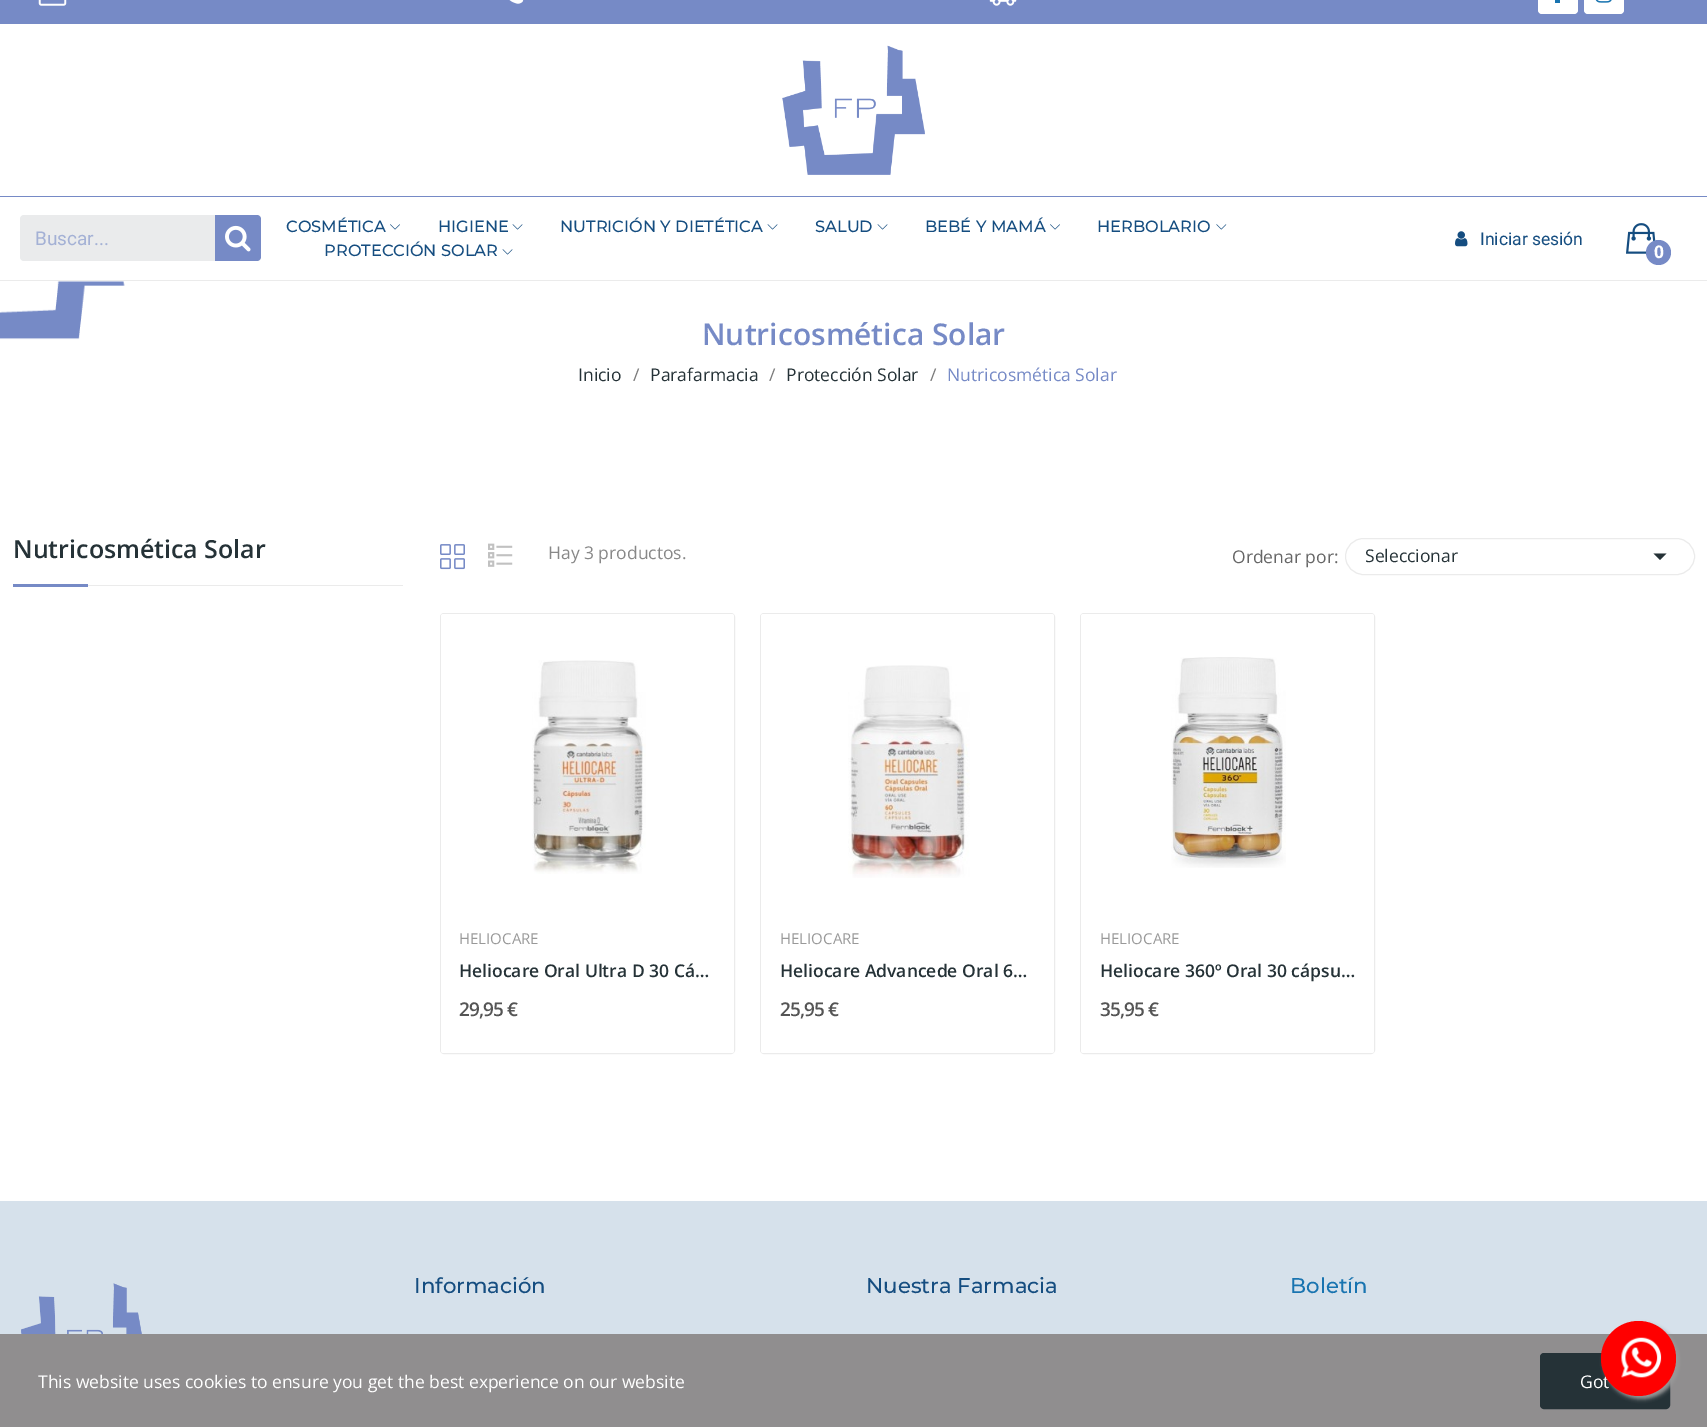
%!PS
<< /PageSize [1707 1427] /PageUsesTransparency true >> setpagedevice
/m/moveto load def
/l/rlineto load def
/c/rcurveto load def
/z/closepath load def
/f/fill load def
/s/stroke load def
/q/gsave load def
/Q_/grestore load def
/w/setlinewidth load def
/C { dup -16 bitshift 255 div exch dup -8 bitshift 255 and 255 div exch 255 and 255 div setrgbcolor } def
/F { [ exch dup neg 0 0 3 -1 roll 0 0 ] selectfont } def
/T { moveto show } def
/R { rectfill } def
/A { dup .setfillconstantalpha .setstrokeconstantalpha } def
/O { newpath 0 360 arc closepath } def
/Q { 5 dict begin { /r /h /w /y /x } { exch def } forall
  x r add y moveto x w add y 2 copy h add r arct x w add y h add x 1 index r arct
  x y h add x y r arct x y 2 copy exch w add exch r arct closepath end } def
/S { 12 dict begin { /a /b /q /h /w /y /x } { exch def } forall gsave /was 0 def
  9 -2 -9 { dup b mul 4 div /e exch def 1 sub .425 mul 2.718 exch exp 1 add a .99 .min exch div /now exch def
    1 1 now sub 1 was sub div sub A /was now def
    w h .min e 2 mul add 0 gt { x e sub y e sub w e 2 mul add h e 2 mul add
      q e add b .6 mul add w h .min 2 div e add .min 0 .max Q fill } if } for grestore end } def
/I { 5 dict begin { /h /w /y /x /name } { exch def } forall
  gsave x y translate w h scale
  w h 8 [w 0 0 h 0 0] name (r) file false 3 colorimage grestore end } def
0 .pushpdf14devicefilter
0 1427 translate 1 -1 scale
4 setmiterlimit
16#FFFFFF C
0 0 1707 1427 R
16#EBEBEB C
0 280 1707 1 R
16#768AC6 C
0 0 1707 24 R
(1.rgb) 38 0 29 6 I
(2.rgb) 509 0 15 4 I
(3.rgb) 989 0 28 6 I
16#FFFFFF C
1538 -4 40 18 4 Q f
16#1974B0 C
1555 0 5 3 R
16#FFFFFF C
1584 -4 40 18 4 Q f
(4.rgb) 1595 0 17 3 I
(5.rgb) 782 45 143 130 I
16#768AC6 C
0 196 1707 1 R
16#EAEBEC C
20 215 241 46 4 Q f
/Roboto-Regular 19 F
16#A4B1D5 C
(Buscar...) 35 245 T
16#768AC6 C
215 215 m 42 0 l 2 0 4 2 4 4 c 0 38 l 0 2 -2 4 -4 4 c -42 0 l z f
(6.rgb) 225 225 26 27 I
/Montserrat-Medium 16.25 F
16#154D80 C
(COSMÉTICA) 286 232 T
(7.rgb) 390 224 10 6 I
(HIGIENE) 438 232 T
(8.rgb) 512 224 11 6 I
(NUTRICIÓN Y DIETÉTICA) 560 232 T
(8.rgb) 767 224 11 6 I
(SALUD) 815 232 T
(8.rgb) 877 224 11 6 I
(BEBÉ Y MAMÁ) 925 232 T
(7.rgb) 1050 224 10 6 I
(HERBOLARIO) 1097 232 T
(9.rgb) 1216 224 11 6 I
(PROTECCIÓN SOLAR) 324 256 T
(8.rgb) 502 249 11 6 I
(10.rgb) 1455 231 13 16 I
/Roboto-Regular 17.5 F
(Iniciar sesión) 1480 245 T
(11.rgb) 1626 223 30 31 I
16#768AC6 C
1658.5 252.5 12.5 O f
/OpenSans-Bold 17.5 F
16#FFFFFF C
(0) 1654 258 T
(12.rgb) 0 281 125 59 I
/OpenSans-SemiBold 30 F
16#768AC6 C
(Nutricosmética Solar) 702 345 T
/OpenSans-Regular 17.5 F
16#253237 C
(Inicio) 578 381 T
16#7A7A7A C
(/) 633 381 T
16#253237 C
(Parafarmacia) 650 381 T
16#7A7A7A C
(/) 769 381 T
16#253237 C
(Protección Solar) 786 381 T
16#7A7A7A C
(/) 930 381 T
16#768AC6 C
(Nutricosmética Solar) 947 381 T
16#EBEBEB C
88 585 315 1 R
/OpenSans-SemiBold 25 F
16#253237 C
(Nutricosmética Solar) 13 558 T
16#768AC6 C
13 584 75 3 R
(13.rgb) 440 544 25 26 I
(14.rgb) 488 543 25 24 I
/OpenSans-Regular 17.5 F
16#888888 C
(Hay 3 productos.) 548 559 T
16#666666 C
(Ordenar por:) 1232 563 T
16#EBEBEB C
1345.5 538.5 349 36 18 Q s
16#253237 C
(Seleccionar) 1365 562 T
1653.5 553.5 m 13 0 l -6.5 6.5 l z f
16#EBEBEB C
440.5 613.5 294 440 3.5 Q s
16#FFFFFF C
443.5 614 m 288 0 l 1.5 0 2.5 1 2.5 2.5 c 0 289.5 l -293 0 l 0 -289.5 l 0 -1.5 1 -2.5 2.5 -2.5 c z f
(15.rgb) 532 660 114 214 I
441 906 m 293 0 l 0 144.5 l 0 1.5 -1 2.5 -2.5 2.5 c -288 0 l -1.5 0 -2.5 -1 -2.5 -2.5 c z f
/OpenSans-Regular 15 F
16#999999 C
(HELIOCARE) 459 944 T
/OpenSans-SemiBold 17.5 F
16#253237 C
(Heliocare Oral Ultra D 30 Cá…) 459 977 T
/OpenSans-SemiBold 19 F
16#555555 C
459 1016 m -1 0 (29,95 €) ashow
16#EBEBEB C
760.5 613.5 294 440 3.5 Q s
16#FFFFFF C
763.5 614 m 288 0 l 1.5 0 2.5 1 2.5 2.5 c 0 289.5 l -293 0 l 0 -289.5 l 0 -1.5 1 -2.5 2.5 -2.5 c z f
(16.rgb) 848 665 122 213 I
761 906 m 293 0 l 0 144.5 l 0 1.5 -1 2.5 -2.5 2.5 c -288 0 l -1.5 0 -2.5 -1 -2.5 -2.5 c z f
/OpenSans-Regular 15 F
16#999999 C
(HELIOCARE) 780 944 T
/OpenSans-SemiBold 17.5 F
16#253237 C
(Heliocare Advancede Oral 6…) 780 977 T
/OpenSans-SemiBold 19 F
16#555555 C
780 1016 m -1 0 (25,95 €) ashow
16#EBEBEB C
1080.5 613.5 294 440 3.5 Q s
16#FFFFFF C
1083.5 614 m 288 0 l 1.5 0 2.5 1 2.5 2.5 c 0 289.5 l -293 0 l 0 -289.5 l 0 -1.5 1 -2.5 2.5 -2.5 c z f
(17.rgb) 1171 657 115 211 I
1081 906 m 293 0 l 0 144.5 l 0 1.5 -1 2.5 -2.5 2.5 c -288 0 l -1.5 0 -2.5 -1 -2.5 -2.5 c z f
/OpenSans-Regular 15 F
16#999999 C
(HELIOCARE) 1100 944 T
/OpenSans-SemiBold 17.5 F
16#253237 C
(Heliocare 360º Oral 30 cápsu…) 1100 977 T
/OpenSans-SemiBold 19 F
16#555555 C
1100 1016 m -1 0 (35,95 €) ashow
16#D6E1EB C
0 1201 1707 133 R
(18.rgb) 21 1283 121 51 I
/Montserrat-Medium 21.25 F
16#154D80 C
(Información) 414 1293 T
(Nuestra Farmacia) 866 1293 T
16#1974B0 C
(Boletín) 1290 1293 T
16#908E8F C
0 1334 1707 93 R
/OpenSans-Regular 17.5 F
16#FFFFFF C
(This website uses cookies to ensure you get the best experience on our website) 38 1388 T
16#253237 C
1541.5 1354.5 127 53 2.5 Q q f Q_
3 w
s
16#FFFFFF C
(Got) 1580 1388 T
16#999999 C
1604 1324 75 75 37.5 2 1 S
16#FF0000 C
1638.5 1358.5 37.5 O f
(19.rgb) 1621 1337 41 41 I
.poppdf14devicefilter showpage
